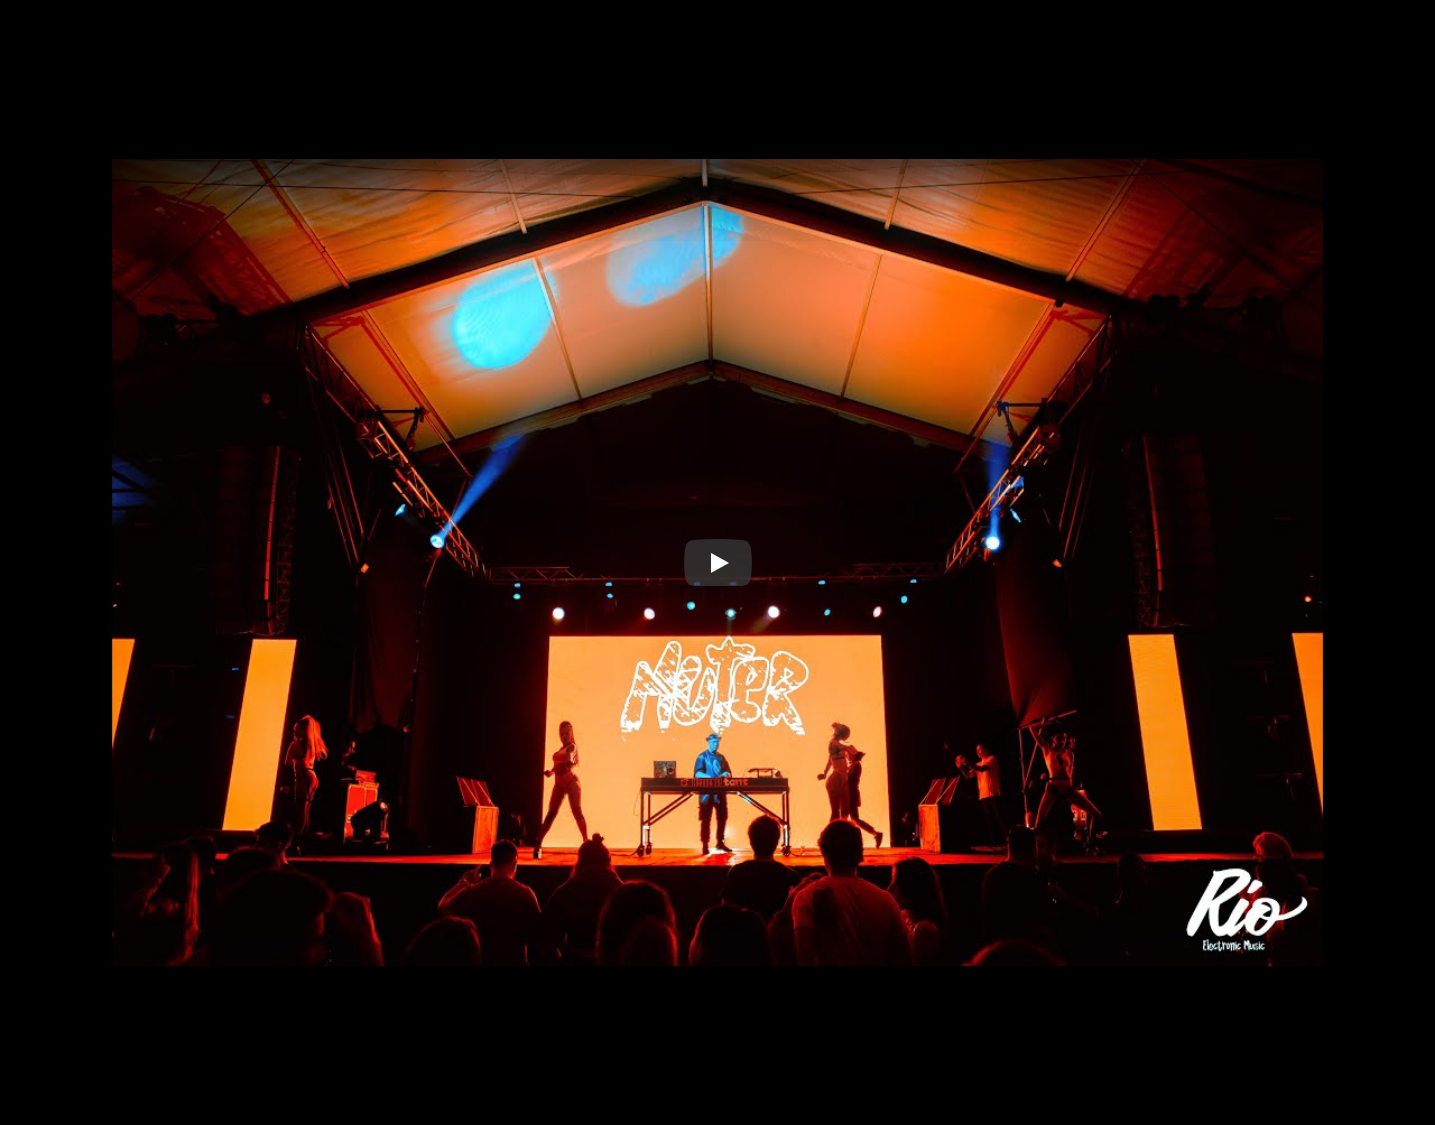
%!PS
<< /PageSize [1435 1125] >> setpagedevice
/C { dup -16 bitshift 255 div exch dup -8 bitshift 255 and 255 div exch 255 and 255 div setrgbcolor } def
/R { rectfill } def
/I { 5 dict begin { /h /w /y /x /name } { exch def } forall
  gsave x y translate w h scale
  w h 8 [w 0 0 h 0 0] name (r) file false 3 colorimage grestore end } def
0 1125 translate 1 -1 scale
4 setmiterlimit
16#000000 C
0 0 1435 1125 R
(1.rgb) 107 159 1221 807 I
(2.rgb) 111 159 1213 82 I
(3.rgb) 684 539 68 47 I
showpage
